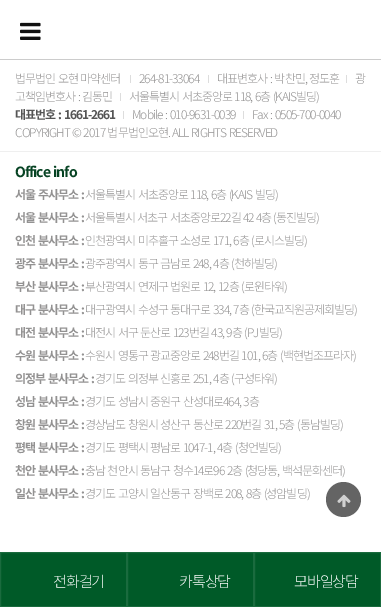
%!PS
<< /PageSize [381 607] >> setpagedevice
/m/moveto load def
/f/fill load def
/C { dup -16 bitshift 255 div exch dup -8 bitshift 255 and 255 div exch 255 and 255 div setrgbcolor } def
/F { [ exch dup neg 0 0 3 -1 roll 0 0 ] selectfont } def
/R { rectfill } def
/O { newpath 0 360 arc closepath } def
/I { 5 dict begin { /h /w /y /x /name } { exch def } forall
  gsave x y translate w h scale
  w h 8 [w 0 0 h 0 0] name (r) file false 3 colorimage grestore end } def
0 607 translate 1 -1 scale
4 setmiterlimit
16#FFFFFF C
0 0 381 607 R
16#CCCCCC C
0 59 381 1 R
(1.rgb) 20 22 21 18 I
/NotoSansKR-Light 12 F
16#939292 C
15 83 m .75 0 32 -1 0 (법무법인 오현 마약센터) awidthshow
16#DDDDDD C
130 75 1 8 R
16#939292 C
139 83 m -1 0 (264-81-33064) ashow
16#DDDDDD C
208 75 1 8 R
16#939292 C
217 83 m 1 0 32 -1 0 (대표변호사 : 박찬민, 정도훈) awidthshow
16#DDDDDD C
346 75 1 8 R
16#939292 C
355 83 m -1 0 (광) ashow
15 101 m .75 0 32 -1 0 (고책임변호사 : 김동민) awidthshow
16#DDDDDD C
120 93 1 8 R
16#939292 C
129 101 m .75 0 32 -1 0 (서울특별시 서초중앙로 118, 6층 \(KAIS빌딩\)) awidthshow
/NotoSansKR-Bold 12 F
16#555555 C
15 119 m 1 0 32 -1 0 (대표번호 : 1661-2661) awidthshow
16#DDDDDD C
123 111 1 8 R
/NotoSansKR-Light 12 F
16#939292 C
132 119 m 1 0 32 -1 0 (Mobile : 010-9631-0039) awidthshow
16#DDDDDD C
243 111 1 8 R
16#939292 C
252 119 m 1 0 32 -1 0 (Fax : 0505-700-0040) awidthshow
15 137 m .75 0 32 -1 0 (COPYRIGHT © 2017 법무법인오현. ALL RIGHTS RESERVED) awidthshow
16#EFEFEF C
0 151 381 1 R
/NotoSansKR-Bold 14 F
16#064323 C
15 177 m 1 0 32 -1 0 (Office info) awidthshow
/NotoSansKR-Bold 12 F
16#939292 C
15 199 m 1 0 32 -1 0 (서울 주사무소 :) awidthshow
/NotoSansKR-Light 12 F
85 199 m .75 0 32 -1 0 (서울특별시 서초중앙로 118, 6층 \(KAIS 빌딩\)) awidthshow
/NotoSansKR-Bold 12 F
15 222 m 1 0 32 -1 0 (서울 분사무소 :) awidthshow
/NotoSansKR-Light 12 F
85 222 m .5 0 32 -1 0 (서울특별시 서초구 서초중앙로22길 42 4층 \(동진빌딩\)) awidthshow
/NotoSansKR-Bold 12 F
15 245 m 1 0 32 -1 0 (인천 분사무소 :) awidthshow
/NotoSansKR-Light 12 F
85 245 m .75 0 32 -1 0 (인천광역시 미추홀구 소성로 171, 6층 \(로시스빌딩\)) awidthshow
/NotoSansKR-Bold 12 F
15 268 m 1 0 32 -1 0 (광주 분사무소 :) awidthshow
/NotoSansKR-Light 12 F
85 268 m .75 0 32 -1 0 (광주광역시 동구 금남로 248, 4층 \(천하빌딩\)) awidthshow
/NotoSansKR-Bold 12 F
15 291 m 1 0 32 -1 0 (부산 분사무소 :) awidthshow
/NotoSansKR-Light 12 F
85 291 m .75 0 32 -1 0 (부산광역시 연제구 법원로 12, 12층 \(로윈타워\)) awidthshow
/NotoSansKR-Bold 12 F
15 314 m 1 0 32 -1 0 (대구 분사무소 :) awidthshow
/NotoSansKR-Light 12 F
85 314 m .75 0 32 -1 0 (대구광역시 수성구 동대구로 334, 7층 \(한국교직원공제회빌딩\)) awidthshow
/NotoSansKR-Bold 12 F
15 337 m 1 0 32 -1 0 (대전 분사무소 :) awidthshow
/NotoSansKR-Light 12 F
85 337 m .75 0 32 -1 0 (대전시 서구 둔산로 123번길 43, 9층 \(PJ빌딩\)) awidthshow
/NotoSansKR-Bold 12 F
15 360 m 1 0 32 -1 0 (수원 분사무소 :) awidthshow
/NotoSansKR-Light 12 F
85 360 m .75 0 32 -1 0 (수원시 영통구 광교중앙로 248번길 101, 6층 \(백현법조프라자\)) awidthshow
/NotoSansKR-Bold 12 F
15 383 m 1 0 32 -1 0 (의정부 분사무소 :) awidthshow
/NotoSansKR-Light 12 F
95 383 m .75 0 32 -1 0 (경기도 의정부 신흥로 251, 4층 \(구성타워\)) awidthshow
/NotoSansKR-Bold 12 F
15 406 m 1 0 32 -1 0 (성남 분사무소 :) awidthshow
/NotoSansKR-Light 12 F
85 406 m .75 0 32 -1 0 (경기도 성남시 중원구 산성대로464, 3층) awidthshow
/NotoSansKR-Bold 12 F
15 429 m 1 0 32 -1 0 (창원 분사무소 :) awidthshow
/NotoSansKR-Light 12 F
85 429 m .75 0 32 -1 0 (경상남도 창원시 성산구 동산로 220번길 31, 5층 \(동남빌딩\)) awidthshow
/NotoSansKR-Bold 12 F
15 452 m 1 0 32 -1 0 (평택 분사무소 :) awidthshow
/NotoSansKR-Light 12 F
85 452 m .75 0 32 -1 0 (경기도 평택시 평남로 1047-1, 4층 \(청언빌딩\)) awidthshow
/NotoSansKR-Bold 12 F
15 475 m 1 0 32 -1 0 (천안 분사무소 :) awidthshow
/NotoSansKR-Light 12 F
85 475 m .75 0 32 -1 0 (충남 천안시 동남구 청수14로96 2층 \(청당동, 백석문화센터\)) awidthshow
/NotoSansKR-Bold 12 F
15 498 m 1 0 32 -1 0 (일산 분사무소 :) awidthshow
/NotoSansKR-Light 12 F
85 498 m .75 0 32 -1 0 (경기도 고양시 일산동구 장백로 208, 8층 \(성암빌딩\)) awidthshow
16#005A28 C
1 553 379 53 R
16#1A6B3E C
.5 552.5 126 54 rectstroke
/NotoSansKR-Light 15 F
16#FFFFFF C
53 587 m -1 0 (전화걸기) ashow
16#1A6B3E C
127.5 552.5 126 54 rectstroke
16#FFFFFF C
179 587 m -1 0 (카톡상담) ashow
16#1A6B3E C
254.5 552.5 126 54 rectstroke
16#FFFFFF C
294 587 m -1 0 (모바일상담) ashow
16#646464 C
343.5 499.5 17.5 O f
(2.rgb) 337 494 14 14 I
showpage
